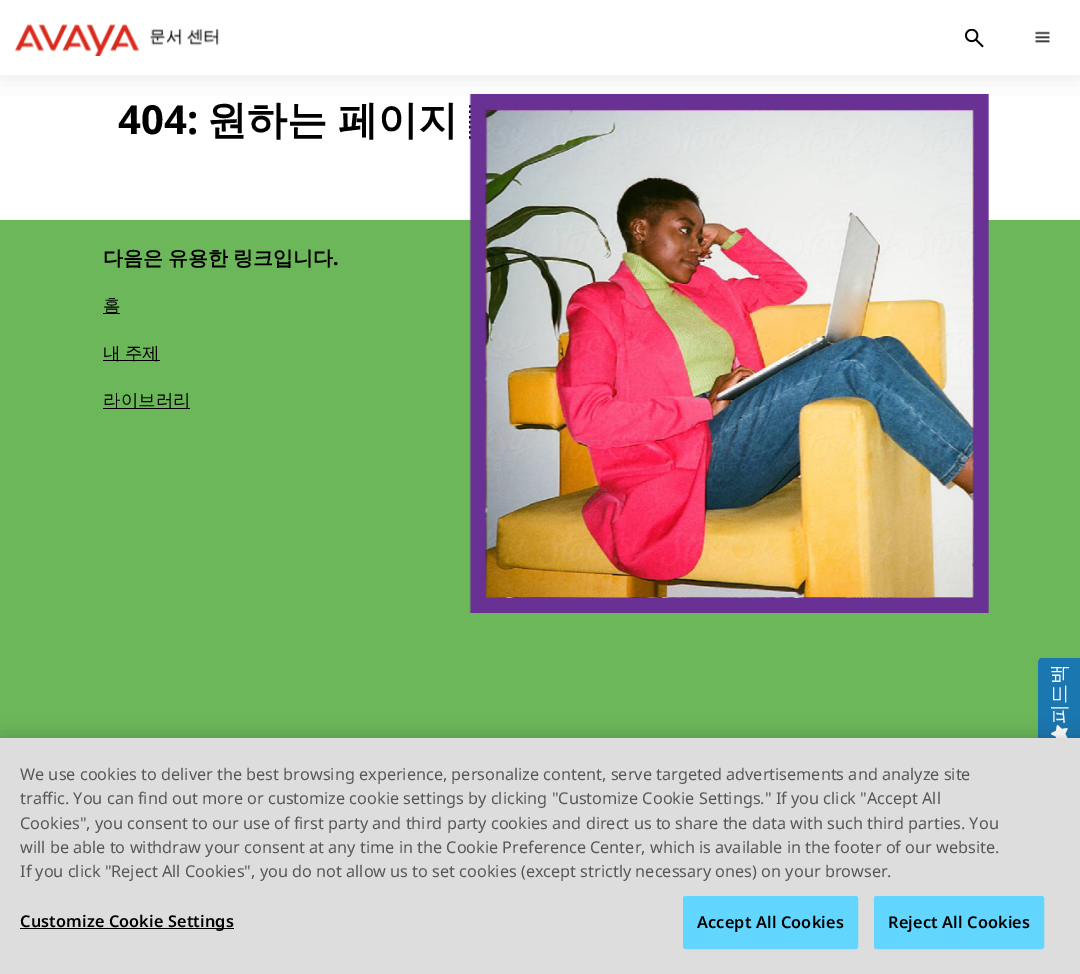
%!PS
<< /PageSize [1080 974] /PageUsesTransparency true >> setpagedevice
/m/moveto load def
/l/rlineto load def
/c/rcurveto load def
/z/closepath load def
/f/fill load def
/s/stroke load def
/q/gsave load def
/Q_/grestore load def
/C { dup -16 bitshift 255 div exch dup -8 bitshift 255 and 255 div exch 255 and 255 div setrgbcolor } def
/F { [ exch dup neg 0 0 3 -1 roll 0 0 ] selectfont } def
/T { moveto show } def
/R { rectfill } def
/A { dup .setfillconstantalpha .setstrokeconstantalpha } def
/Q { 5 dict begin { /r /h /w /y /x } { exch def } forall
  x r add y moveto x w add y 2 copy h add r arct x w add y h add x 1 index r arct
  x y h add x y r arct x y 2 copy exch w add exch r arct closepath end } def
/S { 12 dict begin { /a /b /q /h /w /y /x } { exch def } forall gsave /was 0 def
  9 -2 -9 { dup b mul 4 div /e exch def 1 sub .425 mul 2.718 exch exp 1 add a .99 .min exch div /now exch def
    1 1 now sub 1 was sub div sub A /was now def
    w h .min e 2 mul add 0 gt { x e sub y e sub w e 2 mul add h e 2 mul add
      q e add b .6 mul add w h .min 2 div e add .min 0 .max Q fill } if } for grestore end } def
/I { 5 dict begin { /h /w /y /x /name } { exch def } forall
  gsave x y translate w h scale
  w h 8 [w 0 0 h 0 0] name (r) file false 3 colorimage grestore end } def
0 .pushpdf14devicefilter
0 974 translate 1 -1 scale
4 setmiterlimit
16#FFFFFF C
0 0 1080 974 R
q
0 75 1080 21 rectclip
16#B5B7B3 C
0 3 1080 75 0 12.5 .25 S
Q_
(1.rgb) 15 24 204 32 I
(2.rgb) 965 29 19 19 I
(3.rgb) 1035 31 15 12 I
/NotoSans-Bold 40 F
16#000000 C
(404:) 118 134 T
/WenQuanYiZenHei-Bold 40 F
207 134 m -1 0 32 (원하는 페이지) widthshow
16#6BB75A C
0 220 1080 518 R
(4.rgb) 469 94 520 519 I
/WenQuanYiZenHei-Bold 20 F
16#000000 C
103 265 m -1 0 32 (다음은 유용한 링크입니다) widthshow
/NotoSans-Bold 20 F
(.) 333 265 T
103 313 17 1 R
/WenQuanYiZenHei-Medium 17.5 F
(홈) 103 311 T
103 360 57 1 R
103 359 m -1 0 32 (내 주제) widthshow
103 408 87 1 R
(라이브러리) 103 406 T
16#1B77AF C
1038 744 m 0 -81 l 0 -3 2 -5 4 -5 c 38 0 l 0 91 l -38 0 l -2 0 -4 -2 -4 -5 c z f
/WenQuanYiZenHei-Medium 20 F
16#FFFFFF C
q 1066 724 translate -90 rotate 0 0 m (피드백) show Q_
(5.rgb) 1051 725 17 13 I
16#000000 C
0 738 1080 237 0 11 .2 S
16#DDDDDD C
0 738 1080 236 R
/NotoSans-Regular 16.25 F
16#575759 C
(We use cookies to deliver the best browsing experience, personalize content, serve targeted advertisements and analyze site) 20 780 T
(traffic. You can find out more or customize cookie settings by clicking "Customize Cookie Settings." If you click "Accept All) 20 804 T
(Cookies", you consent to our use of first party and third party cookies and direct us to share the data with such third parties. You) 20 829 T
(will be able to withdraw your consent at any time in the Cookie Preference Center, which is available in the footer of our website.) 20 853 T
(If you click "Reject All Cookies", you do not allow us to set cookies \(except strictly necessary ones\) on your browser.) 20 877 T
16#000000 C
20 928 214 1 R
/NotoSans-SemiBold 16.25 F
20 927 m .15 0 (Customize Cookie Settings) ashow
16#62D6FF C
683.5 896.5 174 52 2 Q q f Q_
s
16#000000 C
697 928 m .15 0 (Accept All Cookies) ashow
16#62D6FF C
874.5 896.5 169 52 2 Q q f Q_
s
16#000000 C
888 928 m .15 0 (Reject All Cookies) ashow
.poppdf14devicefilter showpage
